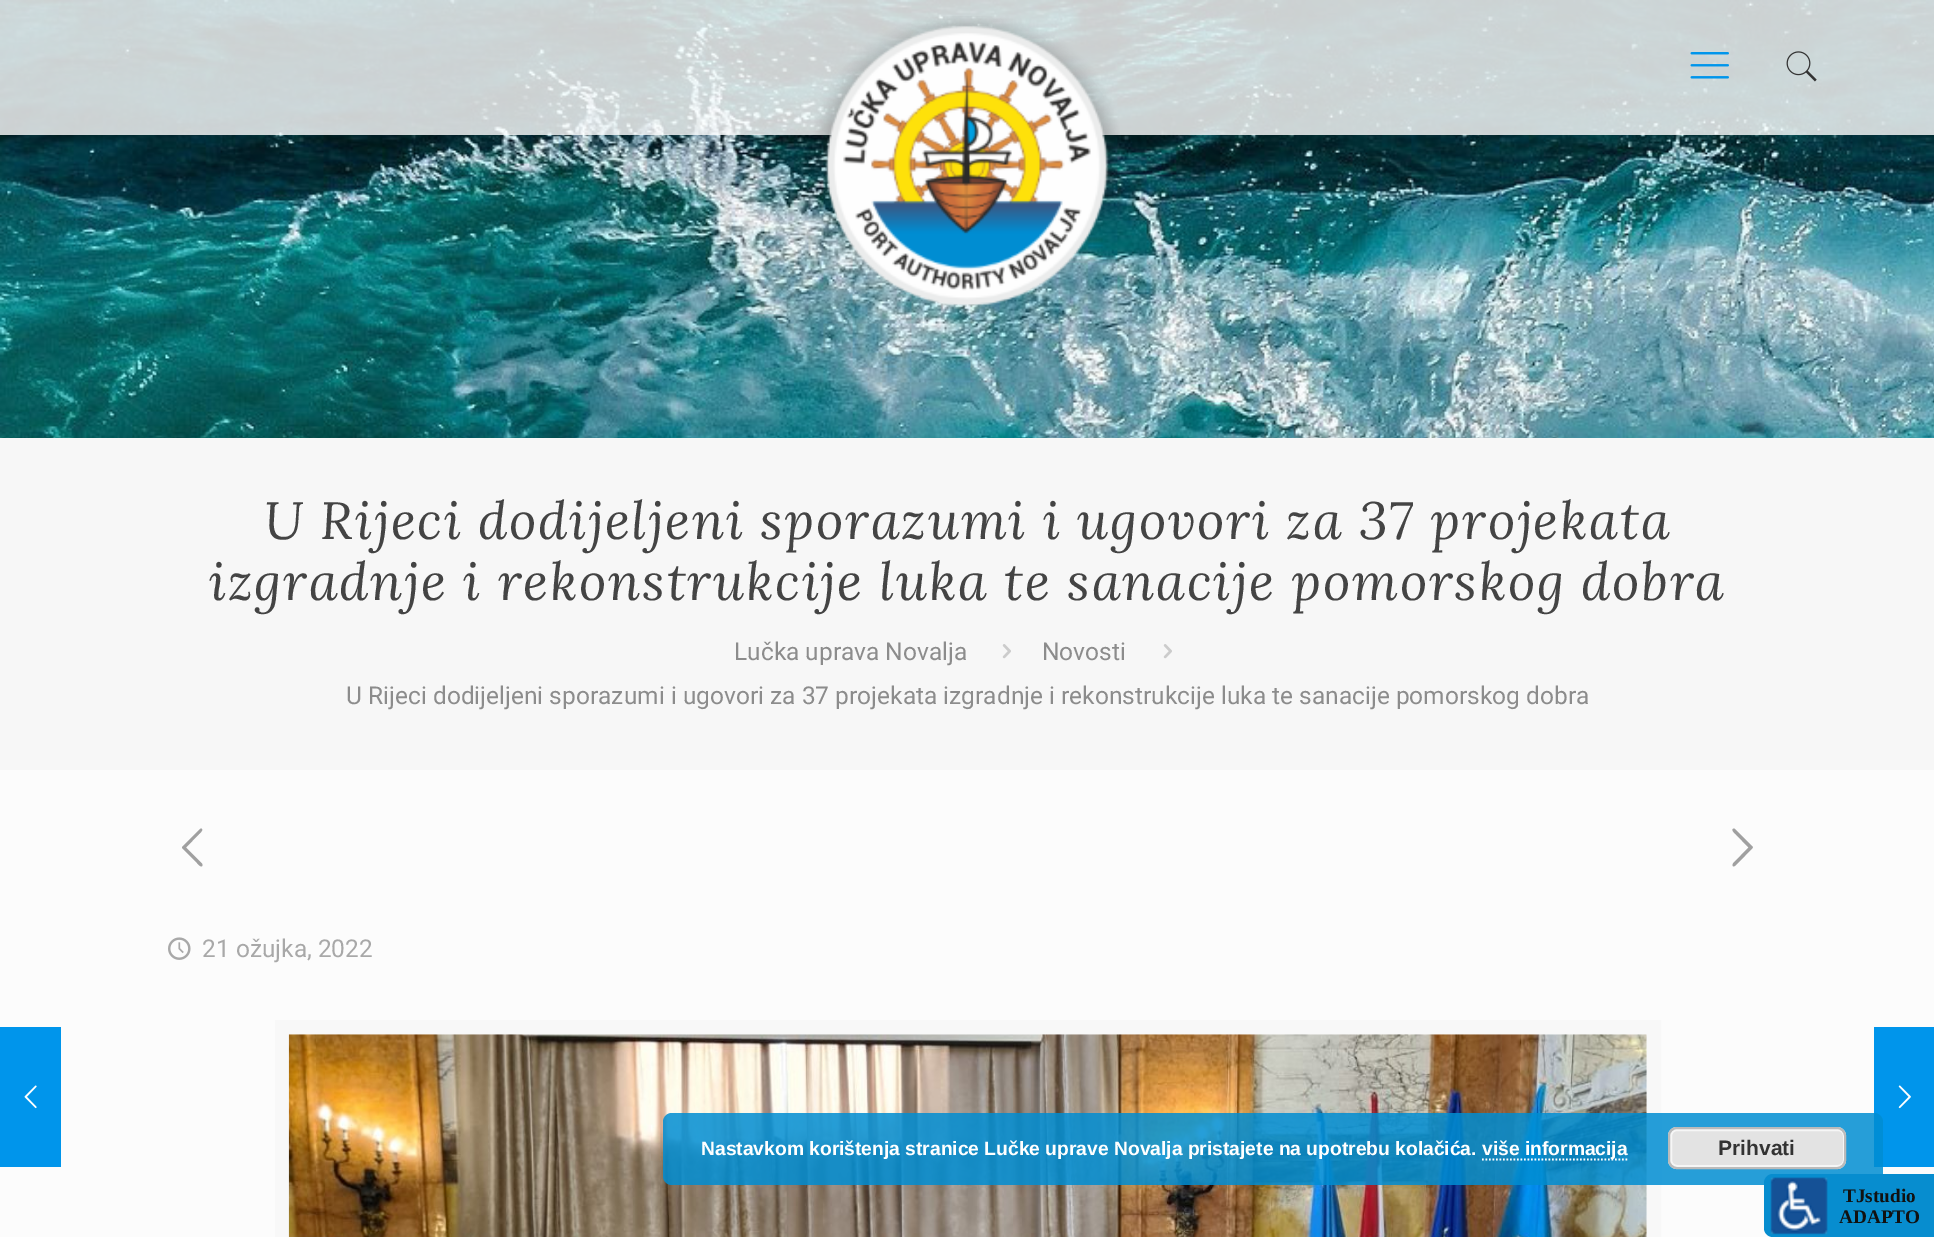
%!PS
<< /PageSize [1934 1237] /PageUsesTransparency true >> setpagedevice
/m/moveto load def
/l/rlineto load def
/c/rcurveto load def
/z/closepath load def
/f/fill load def
/s/stroke load def
/w/setlinewidth load def
/C { dup -16 bitshift 255 div exch dup -8 bitshift 255 and 255 div exch 255 and 255 div setrgbcolor } def
/F { [ exch dup neg 0 0 3 -1 roll 0 0 ] selectfont } def
/T { moveto show } def
/R { rectfill } def
/A { dup .setfillconstantalpha .setstrokeconstantalpha } def
/Q { 5 dict begin { /r /h /w /y /x } { exch def } forall
  x r add y moveto x w add y 2 copy h add r arct x w add y h add x 1 index r arct
  x y h add x y r arct x y 2 copy exch w add exch r arct closepath end } def
/I { 5 dict begin { /h /w /y /x /name } { exch def } forall
  gsave x y translate w h scale
  w h 8 [w 0 0 h 0 0] name (r) file false 3 colorimage grestore end } def
0 .pushpdf14devicefilter
0 1237 translate 1 -1 scale
4 setmiterlimit
16#FCFCFC C
0 0 1934 1237 R
(1.rgb) 0 0 1934 438 I
0.8 A
16#FFFFFF C
0 0 1934 135 R
1 A
(2.rgb) 813 16 307 291 I
(3.rgb) 1690 52 39 27 I
(4.rgb) 1786 51 31 31 I
16#F7F7F7 C
0 438 1934 332 R
/Lora-Italic 52.5 F
16#444444 C
264 539 m 1.75 0 (U Rijeci dodijeljeni sporazumi i ugovori za 37 projekata) ashow
209 600 m 1.75 0 (izgradnje i rekonstrukcije luka te sanacije pomorskog dobra) ashow
/Roboto-Regular 24.5 F
16#8C8C8C C
(Lučka uprava Novalja) 734 660 T
(5.rgb) 1002 644 9 15 I
(Novosti) 1042 660 T
(5.rgb) 1163 644 9 15 I
(U Rijeci dodijeljeni sporazumi i ugovori za 37 projekata izgradnje i rekonstrukcije luka te sanacije pomorskog dobra) 346 704 T
16#A0A0A0 C
202 863.5 m .5 1.5 l -1 4 -5.5 -2 -5.5 -2 c -15 -15 l 0 -1 l .5 -.5 l 17.5 -17.5 l 1 -.5 l 3.5 1 -1.5 5 -2 5.5 c -13 13.5 l z f
1733 863.5 m 15.5 -16 l -13 -13.5 l -.5 -.5 -5.5 -4.5 -1.5 -5.5 c 1 .5 l 17.5 17.5 l .5 .5 l -.5 1 l -14.5 15 l -.5 0 -4.5 6 -5.5 2 c z f
(6.rgb) 168 937 23 23 I
16#A8A8A8 C
(21 ožujka, 2022) 202 957 T
16#F8F8F8 C
14 w
282 1027 1372 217 rectstroke
(7.rgb) 288 1034 1359 203 I
16#0095EB C
0 1027 61 140 R
(8.rgb) 24 1085 13 24 I
1874 1027 60 140 R
0.85 A
16#008DD2 C
663 1113 1220 72 9 Q f
/LiberationSans-Bold 19.25 F
1 A
16#FFFFFF C
(Nastavkom korištenja stranice Lučke uprave Novalja pristajete na upotrebu kolačića.) 701 1155 T
1.8 w
[1.75 1.75] 0 setdash
1482 1159.5 m 145.5 0 l s
(više informacija) 1482 1155 T
16#E3E3E3 C
1668 1127 178 42 9 Q f
16#F6F6F6 C
2 w
[] 0 setdash
1671 1130 173 36 6 Q s
16#BBBBBB C
1669 1128 176 40 8 Q s
/LiberationSans-Bold 21 F
16#333333 C
(Prihvati) 1718 1155 T
(9.rgb) 1898 1085 13 24 I
16#078DCF C
1764 1174 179 63 9 Q f
(10.rgb) 1770 1177 58 58 I
/LiberationSerif-Bold 19.25 F
16#111111 C
(TJstudio) 1843 1202 T
(ADAPTO) 1839 1223 T
.poppdf14devicefilter showpage
